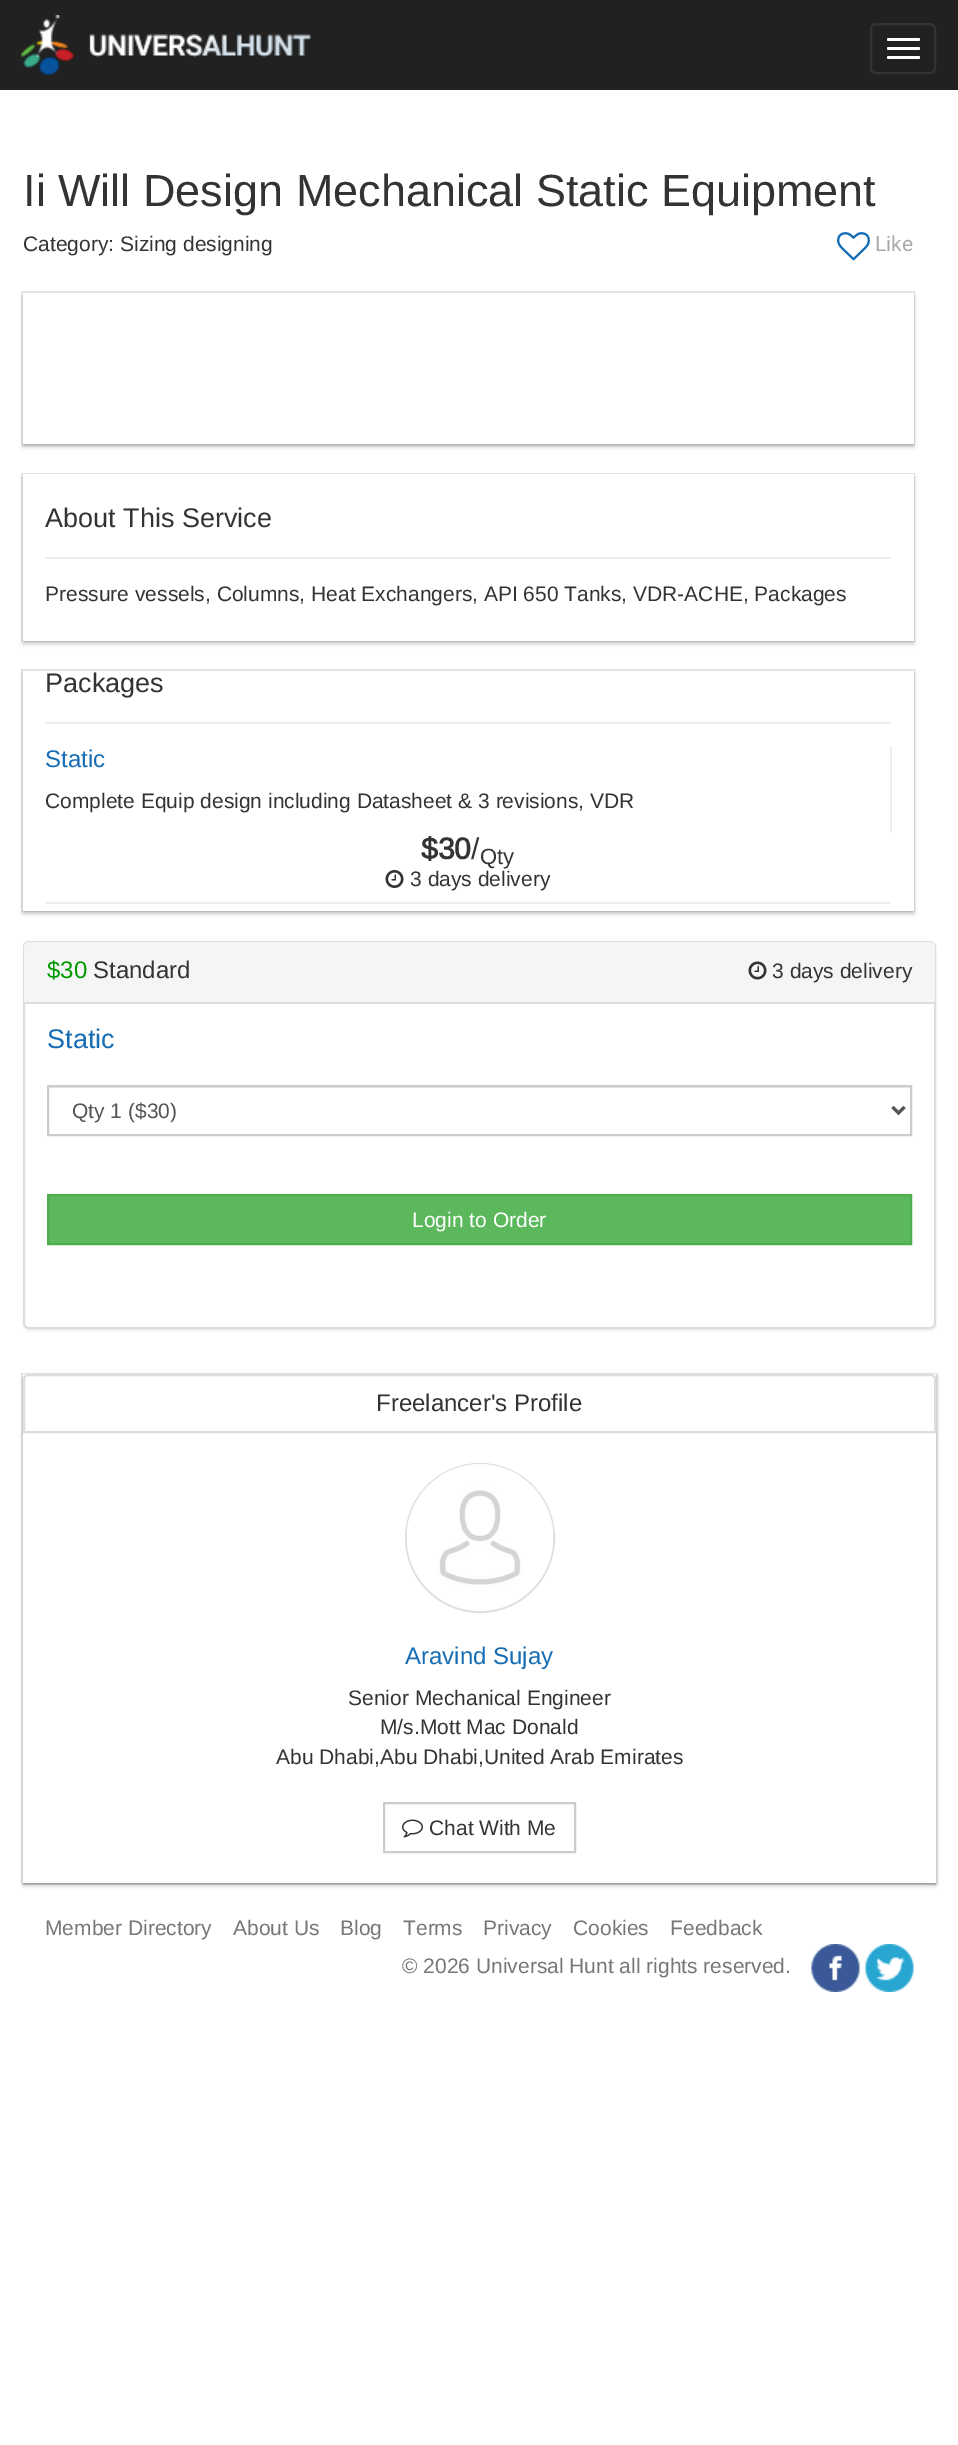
%!PS
<< /PageSize [958 2445] /PageUsesTransparency true >> setpagedevice
/m/moveto load def
/l/rlineto load def
/c/rcurveto load def
/z/closepath load def
/f/fill load def
/s/stroke load def
/q/gsave load def
/Q_/grestore load def
/w/setlinewidth load def
/C { dup -16 bitshift 255 div exch dup -8 bitshift 255 and 255 div exch 255 and 255 div setrgbcolor } def
/F { [ exch dup neg 0 0 3 -1 roll 0 0 ] selectfont } def
/T { moveto show } def
/R { rectfill } def
/A { dup .setfillconstantalpha .setstrokeconstantalpha } def
/O { newpath 0 360 arc closepath } def
/Q { 5 dict begin { /r /h /w /y /x } { exch def } forall
  x r add y moveto x w add y 2 copy h add r arct x w add y h add x 1 index r arct
  x y h add x y r arct x y 2 copy exch w add exch r arct closepath end } def
/S { 12 dict begin { /a /b /q /h /w /y /x } { exch def } forall gsave /was 0 def
  9 -2 -9 { dup b mul 4 div /e exch def 1 sub .425 mul 2.718 exch exp 1 add a .99 .min exch div /now exch def
    1 1 now sub 1 was sub div sub A /was now def
    w h .min e 2 mul add 0 gt { x e sub y e sub w e 2 mul add h e 2 mul add
      q e add b .6 mul add w h .min 2 div e add .min 0 .max Q fill } if } for grestore end } def
/I { 5 dict begin { /h /w /y /x /name } { exch def } forall
  gsave x y translate w h scale
  w h 8 [w 0 0 h 0 0] name (r) file false 3 colorimage grestore end } def
0 .pushpdf14devicefilter
0 2445 translate 1 -1 scale
4 setmiterlimit
16#FFFFFF C
0 0 958 2445 R
16#212121 C
0 0 958 90 R
(1.rgb) 20 15 291 60 I
16#333333 C
2 w
871 24 64 49 5 Q s
16#FFFFFF C
887 38 33 3 1.5 Q f
887 47 33 3 1.5 Q f
887 56 33 3 1.5 Q f
/Arimo-Regular 45 F
16#333333 C
(Ii Will Design Mechanical Static Equipment) 23 206 T
/Arimo-Regular 21 F
(Category: Sizing designing) 23 251 T
(2.rgb) 837 232 33 29 I
/Roboto-Regular 21 F
16#AAAAAA C
(Like) 875 251 T
16#000000 C
23 296 891 151 0 2 .2 S
0.1 A
22 292 892 153 rectstroke
1 A
16#FFFFFF C
23 293 891 151 R
16#000000 C
23 477 891 167 0 2 .2 S
0.1 A
22 474 892 167 rectstroke
1 A
16#FFFFFF C
23 474 891 167 R
/Arimo-Regular 27 F
16#333333 C
(About This Service) 45 527 T
16#EEEEEE C
45 557 846 2 R
/Arimo-Regular 21 F
16#333333 C
(Pressure vessels, Columns, Heat Exchangers, API 650 Tanks, VDR-ACHE, Packages) 45 601 T
16#000000 C
23 674 891 240 0 2 .2 S
0.1 A
22 670 892 241 rectstroke
1 A
16#FFFFFF C
23 671 891 240 R
/Arimo-Regular 27 F
16#333333 C
(Packages) 45 692 T
16#EEEEEE C
45 722 846 2 R
890 746 2 87 R
/Arimo-Regular 24 F
16#166DB4 C
(Static) 45 767 T
/Arimo-Regular 21 F
16#333333 C
(Complete Equip design including Datasheet & 3 revisions, VDR) 45 808 T
/Arimo-Bold 30 F
($30) 421 859 T
/Arimo-Regular 30 F
(/) 471 859 T
/Arimo-Regular 22 F
(Qty) 480 864 T
(3.rgb) 385 870 19 18 I
/Arimo-Regular 21 F
(3 days delivery) 410 886 T
16#EEEEEE C
45 902 846 2 R
16#000000 C
23 942 913 389 6 1 .05 S
16#FFFFFF C
24 942 911 386 5 Q q f Q_
16#DDDDDD C
s
16#F5F5F5 C
29 942 m 901 0 l 3 0 5 2 5 5 c 0 55 l -911 0 l 0 -55 l 0 -3 2 -5 5 -5 c z f
/Arimo-Regular 24 F
16#009900 C
($30) 47 978 T
16#333333 C
(Standard) 93 978 T
(4.rgb) 748 961 19 19 I
/Arimo-Regular 21 F
(3 days delivery) 772 978 T
16#DDDDDD C
24 1002 911 2 R
/Arimo-Regular 27 F
16#166DB4 C
(Static) 47 1048 T
16#ECECEC C
48 1087 863 1 R
16#CCCCCC C
48 1086 863 49 rectstroke
16#555555 C
3 w
892.5 1107 m 6 6 l 6 -6 l s
/Arimo-Regular 21 F
(Qty 1 \($30\)) 72 1118 T
16#5CB85C C
48 1195 m 863 0 l 0 49 l -863 0 l z q f Q_
16#4CAE4C C
2 w
s
16#FFFFFF C
(Login to Order) 412 1227 T
16#D9D9D9 C
23 1883 913 2 R
16#000000 C
23 1377 913 509 0 2 .2 S
0.1 A
22 1374 915 509 rectstroke
1 A
16#FFFFFF C
23 1374 913 509 R
16#DDDDDD C
28 1375 m 903 0 l 2 0 4 2 4 4 c 0 53 l -911 0 l 0 -53 l 0 -2 2 -4 4 -4 c z s
/Arimo-Regular 24 F
16#333333 C
(Freelancer's Profile) 376 1411 T
16#DDDDDD C
480 1538 74 O s
(5.rgb) 406 1464 148 147 I
16#166DB4 C
(Aravind Sujay) 405 1664 T
/Arimo-Regular 21 F
16#333333 C
(Senior Mechanical Engineer) 348 1705 T
(M/s.Mott Mac Donald) 380 1734 T
(Abu Dhabi,Abu Dhabi,United Arab Emirates) 276 1764 T
16#CCCCCC C
384 1803 191 49 rectstroke
(6.rgb) 402 1819 21 19 I
16#333333 C
(Chat With Me) 429 1835 T
16#777777 C
(Member Directory) 45 1935 T
(About Us) 233 1935 T
(Blog) 340 1935 T
(Terms) 403 1935 T
(Privacy) 483 1935 T
(Cookies) 573 1935 T
(Feedback) 670 1935 T
(© 2026 Universal Hunt all rights reserved.) 402 1973 T
(7.rgb) 811 1944 49 48 I
(8.rgb) 865 1944 49 48 I
.poppdf14devicefilter showpage
